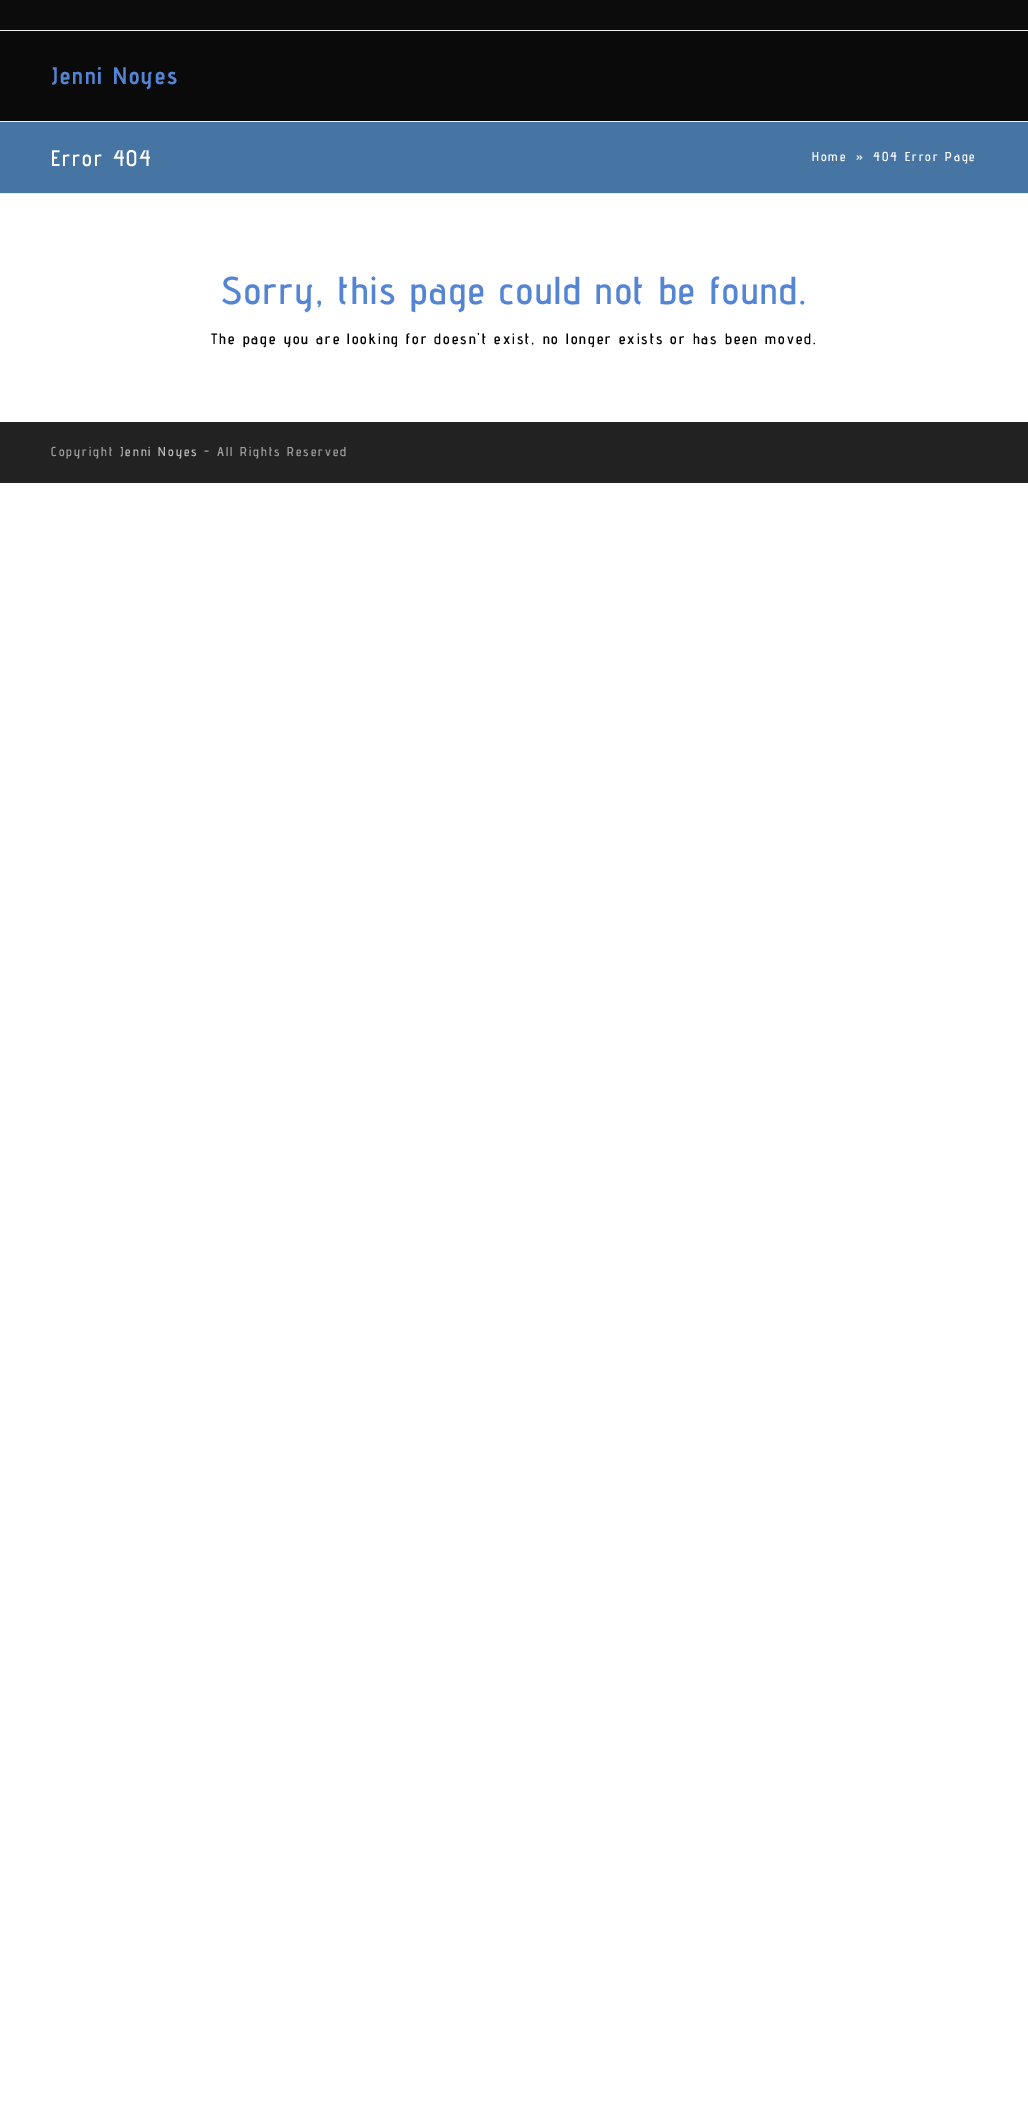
%!PS
<< /PageSize [1028 2111] >> setpagedevice
/m/moveto load def
/C { dup -16 bitshift 255 div exch dup -8 bitshift 255 and 255 div exch 255 and 255 div setrgbcolor } def
/F { [ exch dup neg 0 0 3 -1 roll 0 0 ] selectfont } def
/R { rectfill } def
0 2111 translate 1 -1 scale
4 setmiterlimit
16#FFFFFF C
0 0 1028 2111 R
16#0C0C0C C
0 0 1028 30 R
16#EEEEEE C
0 30 1028 1 R
16#0A0A0A C
0 31 1028 90 R
/AdventPro-Bold 24 F
16#5485D4 C
51 84 m 2 0 (Jenni Noyes) ashow
16#4674A3 C
0 122 1028 71 R
16#EEEEEE C
0 121 1028 1 R
0 193 1028 1 R
/AdventPro-SemiBold 22.5 F
16#FFFFFF C
51 166 m 2 0 (Error 404) ashow
/AdventPro-SemiBold 13 F
812 161 m 2 0 (Home) ashow
856 161 m 2 0 (») ashow
873 161 m 2 0 (404 Error Page) ashow
/AdventPro-SemiBold 38.75 F
16#5485D4 C
221 304 m 2 0 (Sorry, this page could not be found.) ashow
/AdventPro-SemiBold 15.1 F
16#020202 C
211 344 m 2 0 (The page you are looking for doesn't exist, no longer exists or has been moved.) ashow
16#222222 C
0 422 1028 61 R
/AdventPro-SemiBold 13 F
16#9E9E9E C
51 456 m 2 0 (Copyright) ashow
16#BDBDBD C
120 456 m 2 0 (Jenni Noyes) ashow
16#9E9E9E C
204 456 m 2 0 (- All Rights Reserved) ashow
showpage
